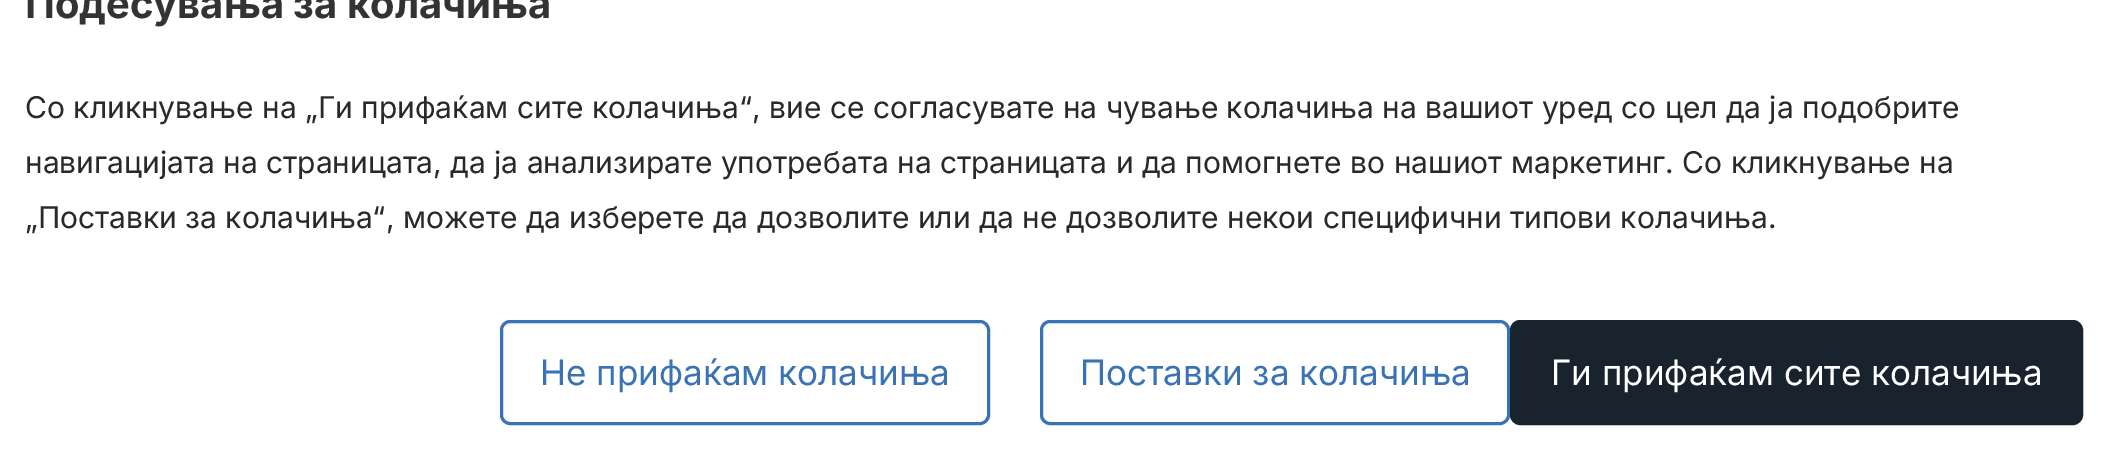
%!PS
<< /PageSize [2107 474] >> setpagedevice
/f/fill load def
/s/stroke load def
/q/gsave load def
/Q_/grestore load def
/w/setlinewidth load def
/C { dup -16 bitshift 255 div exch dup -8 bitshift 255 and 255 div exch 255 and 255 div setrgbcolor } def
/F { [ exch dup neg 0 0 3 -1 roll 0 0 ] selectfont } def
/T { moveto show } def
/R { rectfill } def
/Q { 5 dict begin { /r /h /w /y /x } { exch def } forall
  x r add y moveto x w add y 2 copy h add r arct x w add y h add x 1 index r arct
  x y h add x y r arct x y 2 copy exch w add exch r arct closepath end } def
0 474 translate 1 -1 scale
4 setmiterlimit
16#FFFFFF C
0 0 2107 474 R
/Inter-Bold 40 F
16#333333 C
(Подесувања за колачиња) 25 18 T
/Inter-Regular 30 F
16#292929 C
(Со кликнување на „Ги прифаќам сите колачиња“, вие се согласувате на чување колачиња на вашиот уред со цел да ја подобрите) 25 118 T
(навигацијата на страницата, да ја анализирате употребата на страницата и да помогнете во нашиот маркетинг. Со кликнување на) 25 173 T
(„Поставки за колачиња“, можете да изберете да дозволите или да не дозволите некои специфични типови колачиња.) 25 228 T
16#3973B5 C
3 w
501.5 321.5 487 102 8.5 Q s
/Inter-Regular 35 F
(Не прифаќам колачиња) 540 385 T
1041.5 321.5 467 102 8.5 Q s
(Поставки за колачиња) 1080 385 T
16#18232D C
1511.5 321.5 570 102 8.5 Q q f Q_
s
16#FFFFFF C
(Ги прифаќам сите колачиња) 1551 385 T
showpage
